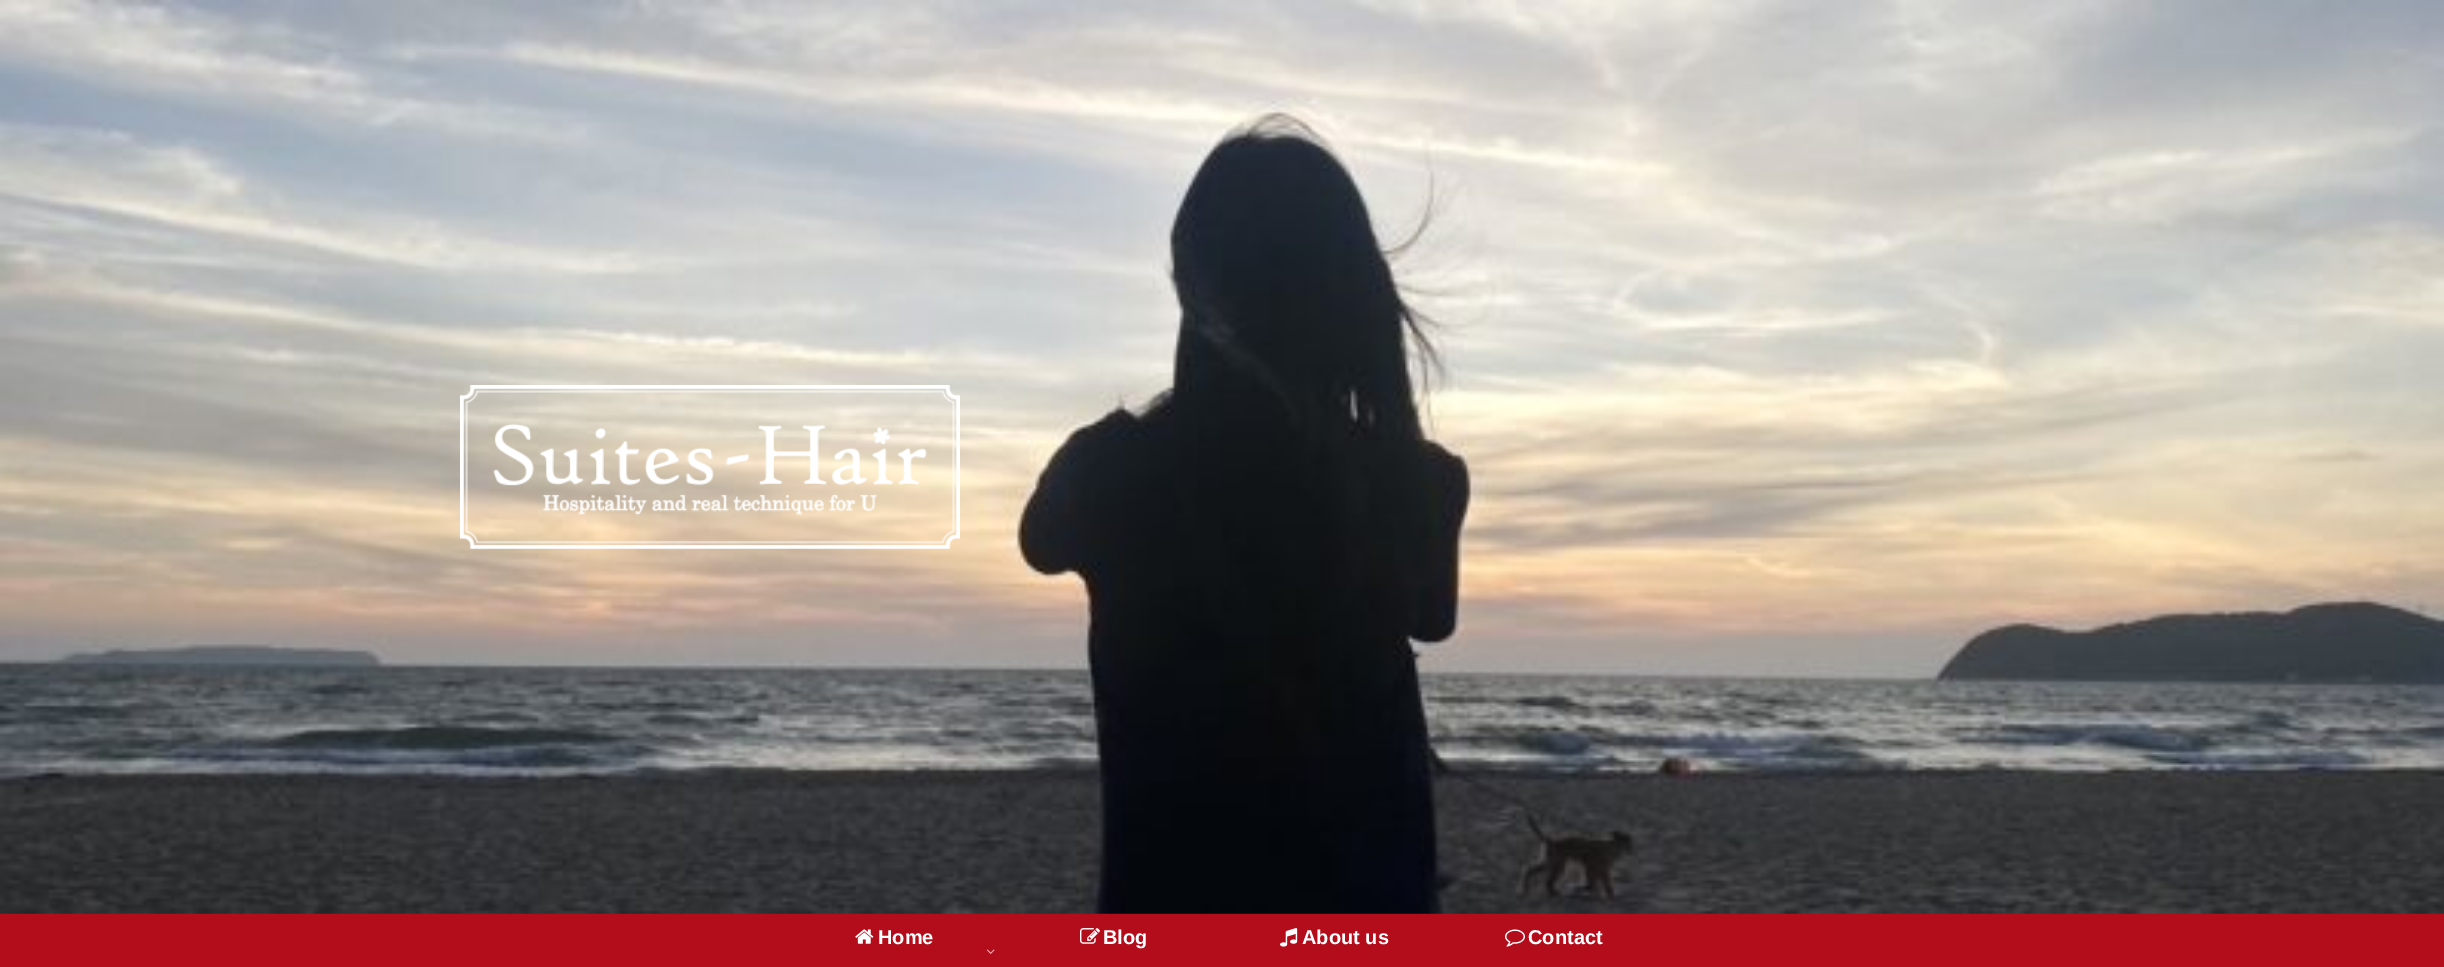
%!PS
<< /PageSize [2444 967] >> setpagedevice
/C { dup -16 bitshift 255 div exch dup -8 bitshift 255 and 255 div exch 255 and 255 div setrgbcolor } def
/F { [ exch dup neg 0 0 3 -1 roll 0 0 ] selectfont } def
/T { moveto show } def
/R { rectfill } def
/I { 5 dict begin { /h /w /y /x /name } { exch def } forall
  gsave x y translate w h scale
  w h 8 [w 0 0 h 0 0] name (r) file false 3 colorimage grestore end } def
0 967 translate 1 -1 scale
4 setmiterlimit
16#B30D1B C
0 0 2444 967 R
(1.rgb) 0 0 2444 914 I
(2.rgb) 460 385 500 164 I
(3.rgb) 855 929 19 15 I
/LiberationSans-Bold 20 F
16#FFFFFF C
(Home) 878 944 T
(4.rgb) 986 949 9 5 I
(5.rgb) 1080 928 20 16 I
(Blog) 1103 944 T
(6.rgb) 1280 928 18 19 I
(About us) 1302 944 T
(7.rgb) 1505 929 20 18 I
(Contact) 1528 944 T
showpage
